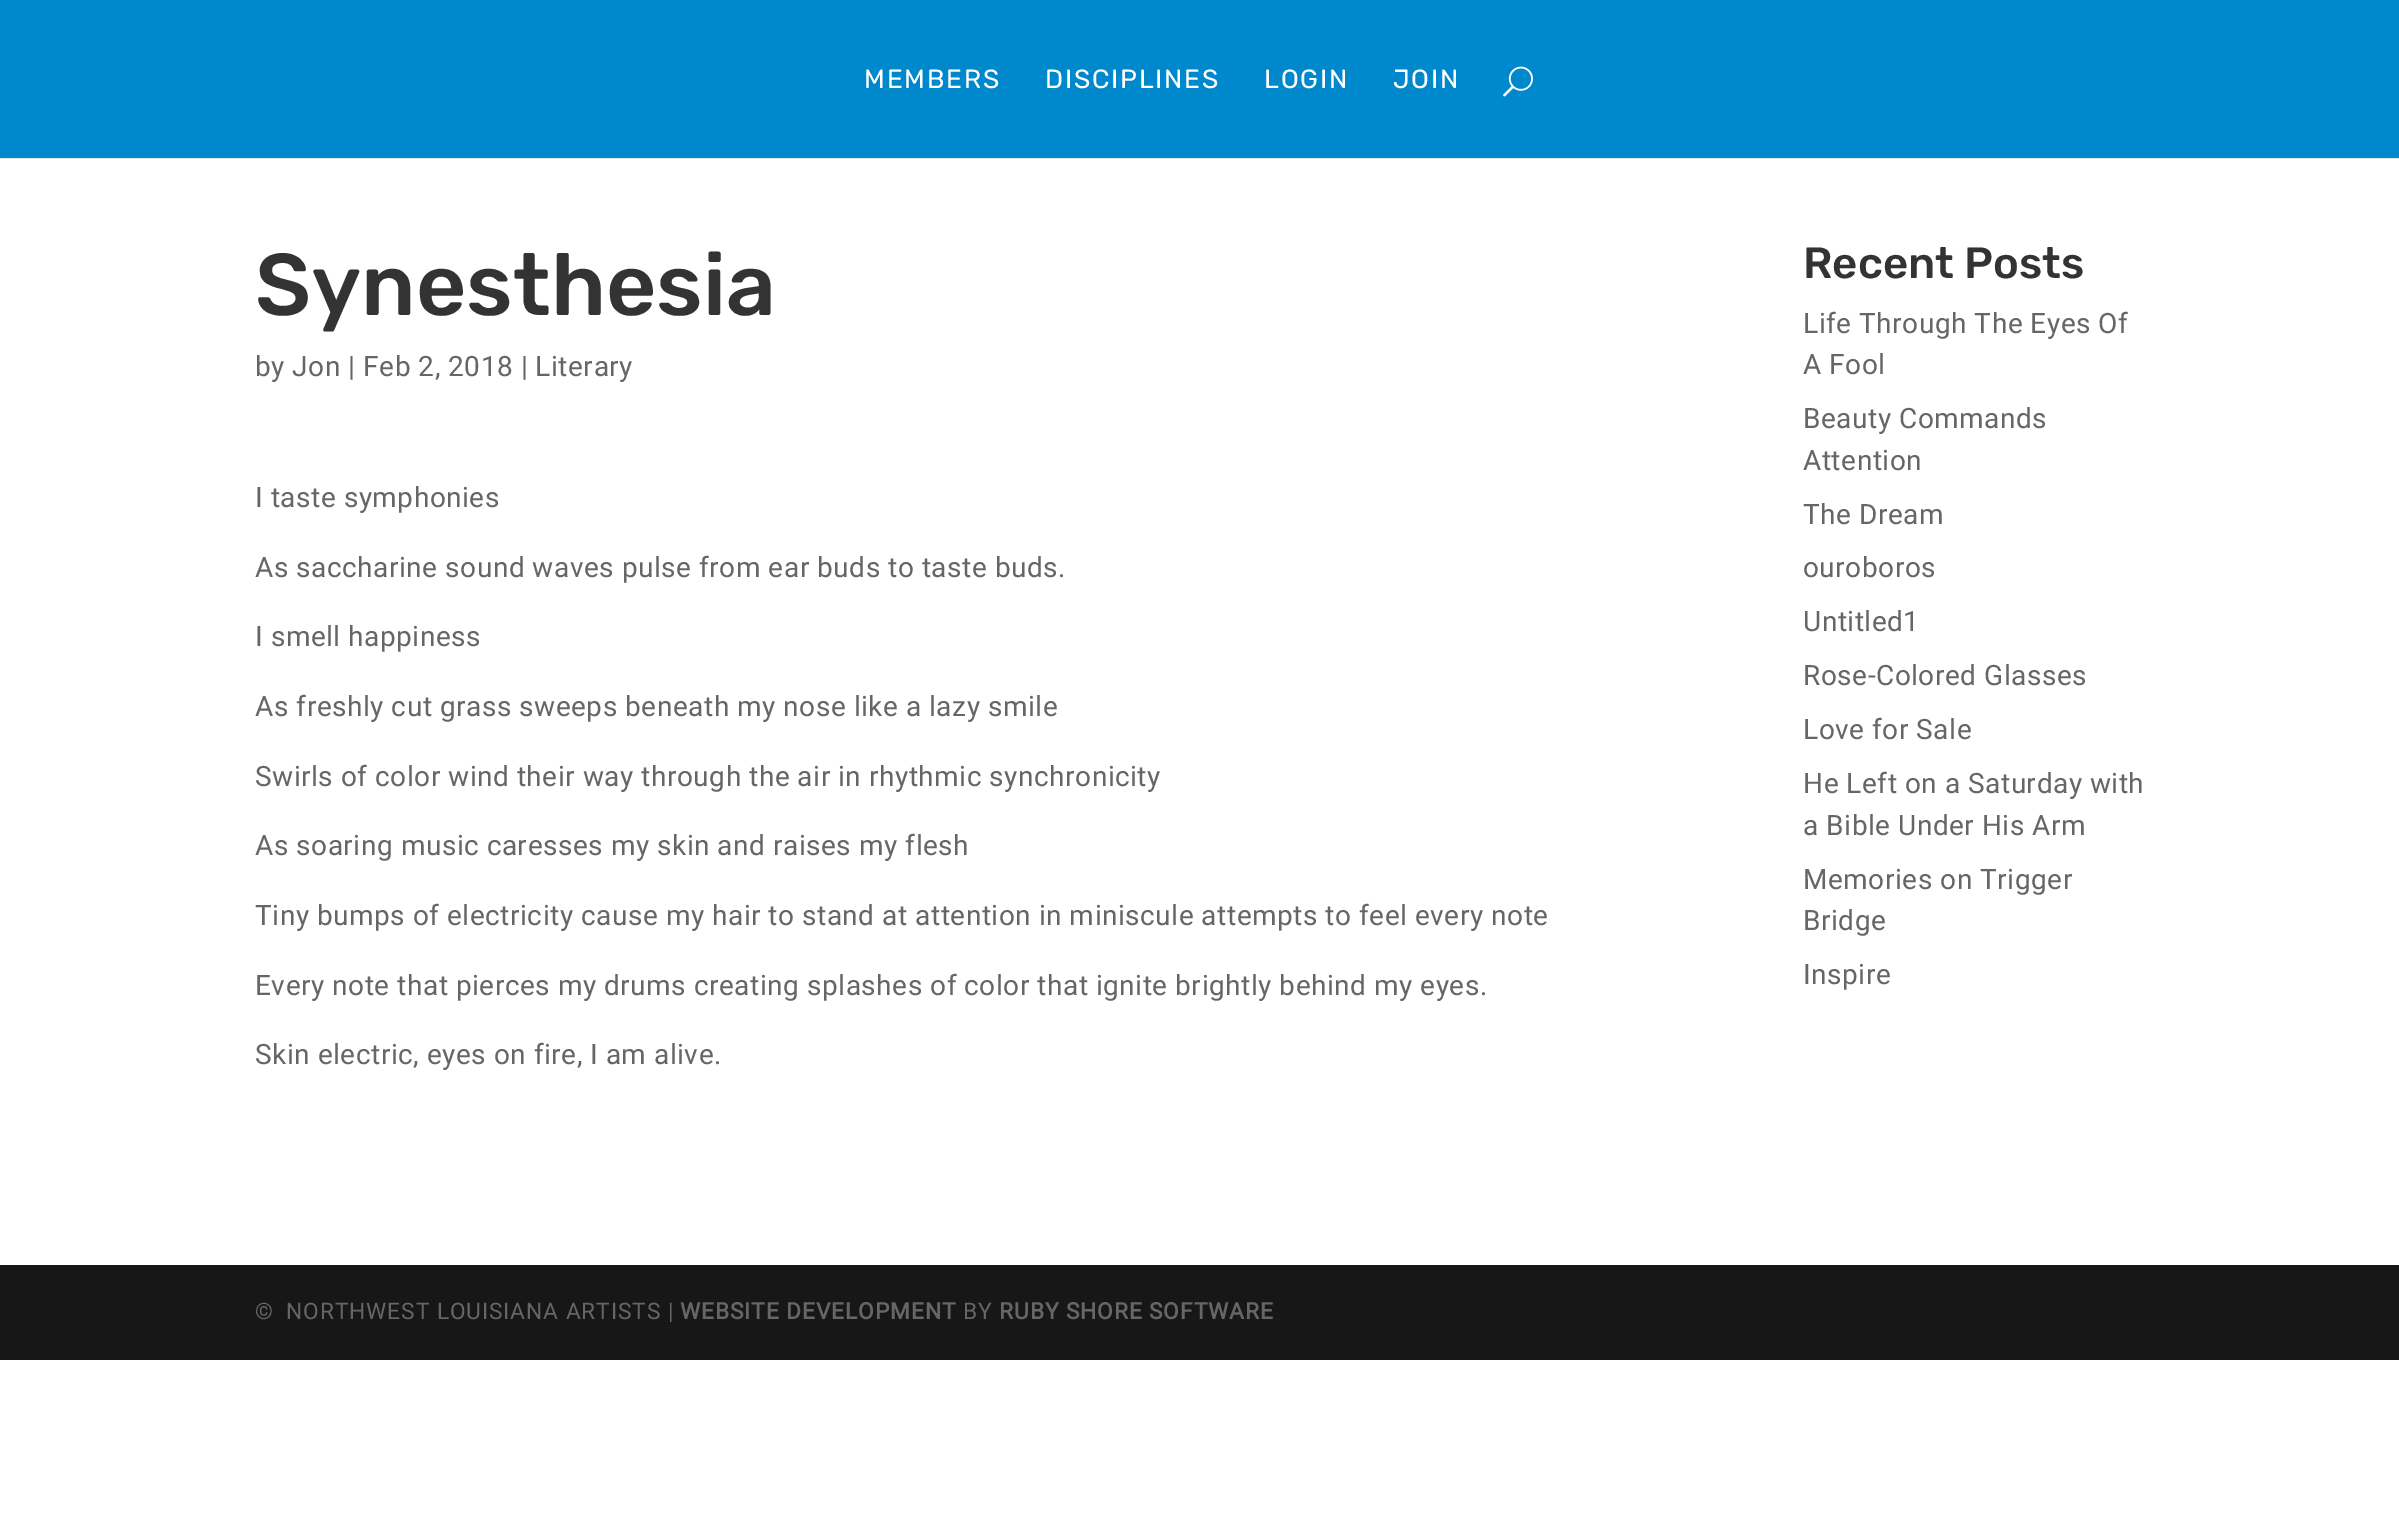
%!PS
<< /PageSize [2399 1535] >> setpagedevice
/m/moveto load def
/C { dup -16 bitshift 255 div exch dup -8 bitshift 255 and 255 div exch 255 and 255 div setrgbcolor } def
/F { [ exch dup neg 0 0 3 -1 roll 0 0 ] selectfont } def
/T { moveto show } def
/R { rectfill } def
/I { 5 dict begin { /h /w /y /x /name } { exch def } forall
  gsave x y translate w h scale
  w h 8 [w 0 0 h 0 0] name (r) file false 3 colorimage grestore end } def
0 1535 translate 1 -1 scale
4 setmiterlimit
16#FFFFFF C
0 0 2399 1535 R
16#E6E6E6 C
0 158 2399 1 R
16#0088CC C
0 0 2399 158 R
/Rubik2-Light 26.25 F
16#FFFFFF C
864 88 m 1.75 0 (MEMBERS) ashow
1045 88 m 1.75 0 (DISCIPLINES) ashow
1264 88 m 1.75 0 (LOGIN) ashow
1393 88 m 1.75 0 (JOIN) ashow
(1.rgb) 1503 66 30 31 I
/Rubik-Light 87.5 F
16#333333 C
(Synesthesia) 255 315 T
/Roboto-Regular 28 F
16#666666 C
255 376 m .53 0 (by Jon | Feb 2, 2018 | Literary) ashow
255 507 m .53 0 (I taste symphonies) ashow
255 577 m .53 0 (As saccharine sound waves pulse from ear buds to taste buds.) ashow
255 646 m .53 0 (I smell happiness) ashow
255 716 m .53 0 (As freshly cut grass sweeps beneath my nose like a lazy smile) ashow
255 786 m .53 0 (Swirls of color wind their way through the air in rhythmic synchronicity) ashow
255 855 m .53 0 (As soaring music caresses my skin and raises my flesh) ashow
255 925 m .53 0 (Tiny bumps of electricity cause my hair to stand at attention in miniscule attempts to feel every note) ashow
255 995 m .53 0 (Every note that pierces my drums creating splashes of color that ignite brightly behind my eyes.) ashow
255 1064 m .53 0 (Skin electric, eyes on fire, I am alive.) ashow
/Rubik-Light 43.75 F
16#333333 C
(Recent Posts) 1803 278 T
/Roboto-Regular 28 F
16#666666 C
1803 333 m .53 0 (Life Through The Eyes Of) ashow
1803 374 m .53 0 (A Fool) ashow
1803 428 m .53 0 (Beauty Commands) ashow
1803 470 m .53 0 (Attention) ashow
1803 524 m .53 0 (The Dream) ashow
1803 577 m .53 0 (ouroboros) ashow
1803 631 m .53 0 (Untitled1) ashow
1803 685 m .53 0 (Rose-Colored Glasses) ashow
1803 739 m .53 0 (Love for Sale) ashow
1803 793 m .53 0 (He Left on a Saturday with) ashow
1803 835 m .53 0 (a Bible Under His Arm) ashow
1803 889 m .53 0 (Memories on Trigger) ashow
1803 930 m .53 0 (Bridge) ashow
1803 984 m .53 0 (Inspire) ashow
16#171717 C
0 1265 2399 95 R
/Roboto-Regular 22.75 F
16#666666 C
255 1319 m .9 0 (©) ashow
286 1319 m .9 0 (NORTHWEST LOUISIANA ARTISTS |) ashow
/Roboto-Bold 22.75 F
680 1319 m .9 0 (WEBSITE DEVELOPMENT) ashow
/Roboto-Regular 22.75 F
963 1319 m .9 0 (BY) ashow
/Roboto-Bold 22.75 F
999 1319 m .9 0 (RUBY SHORE SOFTWARE) ashow
showpage
